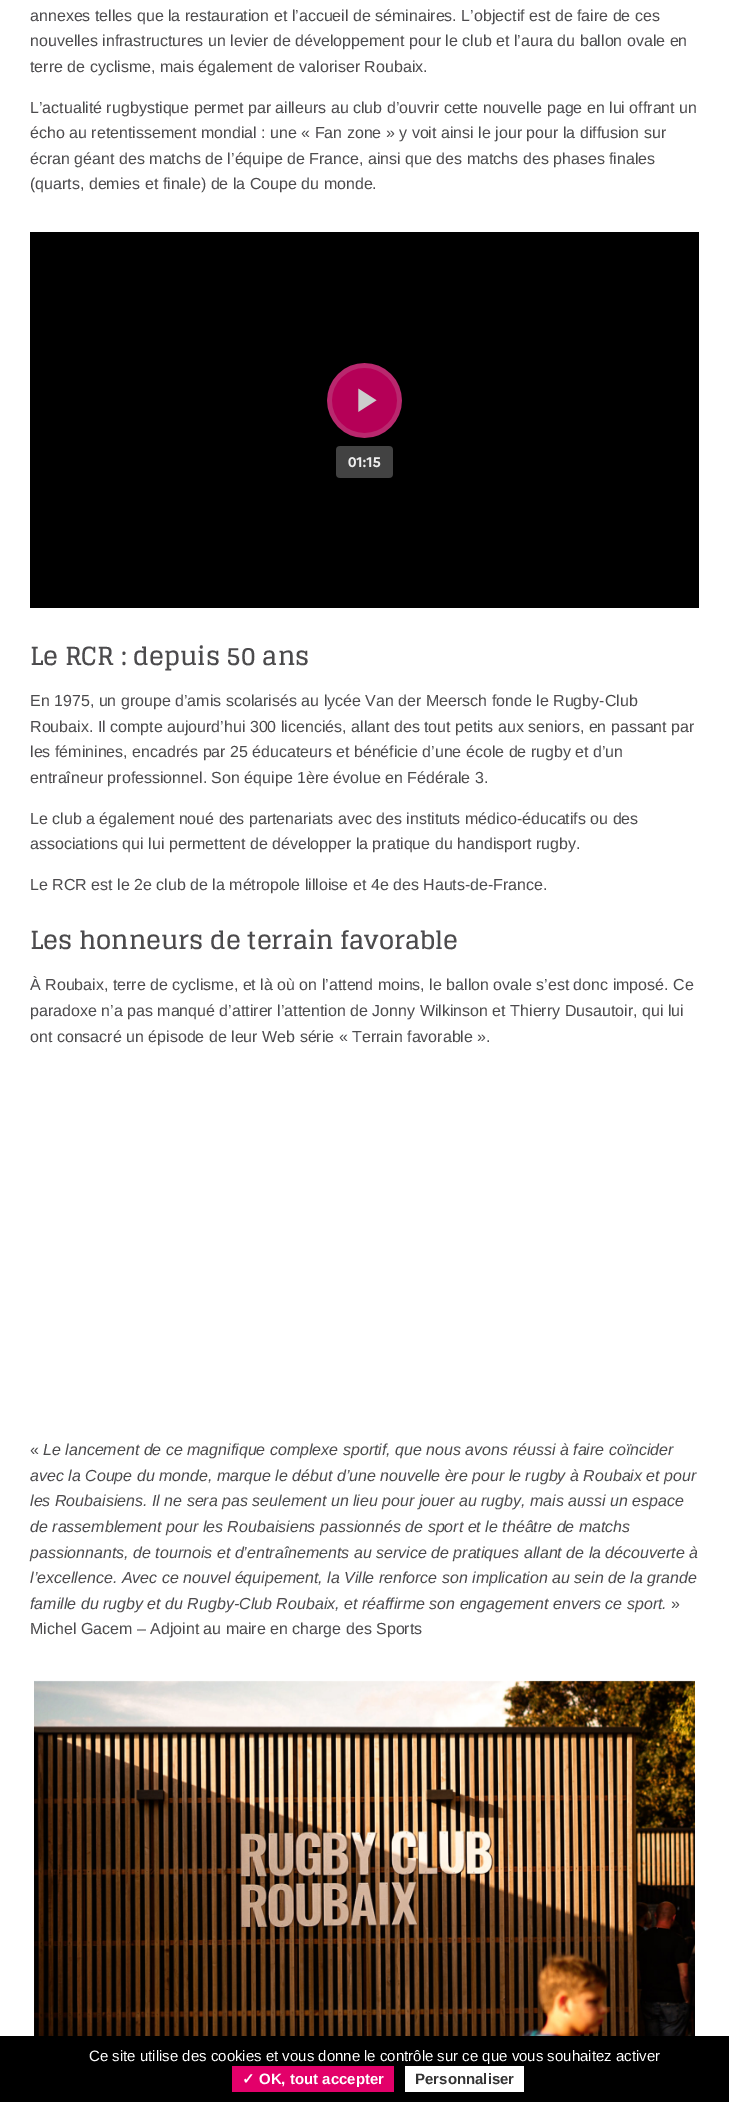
%!PS
<< /PageSize [729 2102] >> setpagedevice
/C { dup -16 bitshift 255 div exch dup -8 bitshift 255 and 255 div exch 255 and 255 div setrgbcolor } def
/F { [ exch dup neg 0 0 3 -1 roll 0 0 ] selectfont } def
/T { moveto show } def
/R { rectfill } def
/I { 5 dict begin { /h /w /y /x /name } { exch def } forall
  gsave x y translate w h scale
  w h 8 [w 0 0 h 0 0] name (r) file false 3 colorimage grestore end } def
0 2102 translate 1 -1 scale
4 setmiterlimit
16#FFFFFF C
0 0 729 2102 R
/LiberationSans-Regular 16 F
16#4C4B4D C
(annexes telles que la restauration et l’accueil de séminaires. L’objectif est de faire de ces) 30 21 T
(nouvelles infrastructures un levier de développement pour le club et l’aura du ballon ovale en) 30 46 T
(terre de cyclisme, mais également de valoriser Roubaix.) 30 72 T
(L’actualité rugbystique permet par ailleurs au club d’ouvrir cette nouvelle page en lui offrant un) 30 113 T
(écho au retentissement mondial : une « Fan zone » y voit ainsi le jour pour la diffusion sur) 30 138 T
(écran géant des matchs de l’équipe de France, ainsi que des matchs des phases finales) 30 164 T
(\(quarts, demies et finale\) de la Coupe du monde.) 30 189 T
(1.rgb) 30 232 669 376 I
/Glegoo-Bold 25 F
(Le RCR : depuis 50 ans) 30 665 T
/LiberationSans-Regular 16 F
(En 1975, un groupe d’amis scolarisés au lycée Van der Meersch fonde le Rugby-Club) 30 706 T
(Roubaix. Il compte aujourd’hui 300 licenciés, allant des tout petits aux seniors, en passant par) 30 732 T
(les féminines, encadrés par 25 éducateurs et bénéficie d’une école de rugby et d’un) 30 757 T
(entraîneur professionnel. Son équipe 1ère évolue en Fédérale 3.) 30 783 T
(Le club a également noué des partenariats avec des instituts médico-éducatifs ou des) 30 824 T
(associations qui lui permettent de développer la pratique du handisport rugby.) 30 849 T
(Le RCR est le 2e club de la métropole lilloise et 4e des Hauts-de-France.) 30 890 T
/Glegoo-Bold 25 F
(Les honneurs de terrain favorable) 30 949 T
/LiberationSans-Regular 16 F
(À Roubaix, terre de cyclisme, et là où on l’attend moins, le ballon ovale s’est donc imposé. Ce) 30 990 T
(paradoxe n’a pas manqué d’attirer l’attention de Jonny Wilkinson et Thierry Dusautoir, qui lui) 30 1016 T
(ont consacré un épisode de leur Web série « Terrain favorable ».) 30 1042 T
(«) 30 1455 T
/LiberationSans-Italic 16 F
(Le lancement de ce magnifique complexe sportif, que nous avons réussi à faire coïncider) 43 1455 T
(avec la Coupe du monde, marque le début d’une nouvelle ère pour le rugby à Roubaix et pour) 30 1481 T
(les Roubaisiens. Il ne sera pas seulement un lieu pour jouer au rugby, mais aussi un espace) 30 1506 T
(de rassemblement pour les Roubaisiens passionnés de sport et le théâtre de matchs) 30 1532 T
(passionnants, de tournois et d’entraînements au service de pratiques allant de la découverte à) 30 1558 T
(l’excellence. Avec ce nouvel équipement, la Ville renforce son implication au sein de la grande) 30 1583 T
(famille du rugby et du Rugby-Club Roubaix, et réaffirme son engagement envers ce sport.) 30 1609 T
/LiberationSans-Regular 16 F
(») 671 1609 T
(Michel Gacem – Adjoint au maire en charge des Sports) 30 1634 T
(2.rgb) 34 1680 661 356 I
16#000000 C
0 2036 729 66 R
/LiberationSans-Regular 15 F
16#FFFFFF C
(Ce site utilise des cookies et vous donne le contrôle sur ce que vous souhaitez activer) 89 2061 T
16#E3006A C
232 2066 162 26 R
/DejaVuSans-Bold 15 F
16#FFFFFF C
(✓) 242 2084 T
/LiberationSans-Bold 15 F
(OK, tout accepter) 259 2084 T
405 2066 119 26 R
16#333333 C
(Personnaliser) 415 2084 T
showpage
